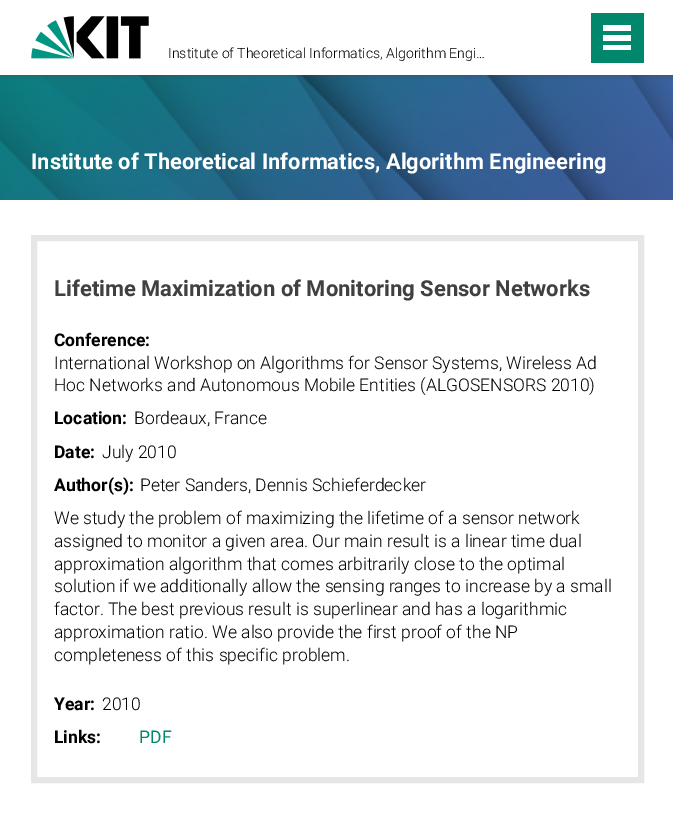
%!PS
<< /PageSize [673 817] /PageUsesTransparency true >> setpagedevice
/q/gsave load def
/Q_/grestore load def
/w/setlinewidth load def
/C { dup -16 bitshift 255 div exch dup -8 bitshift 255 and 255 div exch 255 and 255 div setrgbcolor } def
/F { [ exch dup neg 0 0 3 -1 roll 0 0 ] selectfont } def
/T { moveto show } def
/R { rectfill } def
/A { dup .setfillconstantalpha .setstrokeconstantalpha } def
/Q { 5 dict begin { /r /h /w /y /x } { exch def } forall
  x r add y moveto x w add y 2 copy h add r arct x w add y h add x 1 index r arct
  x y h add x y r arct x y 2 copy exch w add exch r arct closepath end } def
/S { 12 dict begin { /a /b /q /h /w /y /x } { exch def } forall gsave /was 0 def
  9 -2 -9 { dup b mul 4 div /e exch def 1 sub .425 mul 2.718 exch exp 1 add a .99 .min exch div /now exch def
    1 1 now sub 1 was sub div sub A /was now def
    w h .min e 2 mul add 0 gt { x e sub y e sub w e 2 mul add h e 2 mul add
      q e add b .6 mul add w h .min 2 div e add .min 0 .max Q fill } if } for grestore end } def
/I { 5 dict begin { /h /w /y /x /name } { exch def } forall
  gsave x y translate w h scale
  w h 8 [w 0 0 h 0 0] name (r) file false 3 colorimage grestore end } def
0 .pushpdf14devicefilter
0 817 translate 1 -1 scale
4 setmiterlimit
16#FFFFFF C
0 0 673 817 R
(2.rgb) 0 75 673 125 I
q
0 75 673 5 rectclip
16#404040 C
0 0 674 75 0 3 .5 S
Q_
(1.rgb) 31 16 118 43 I
/Roboto-Light 14 F
16#000000 C
(Institute of Theoretical Informatics, Algorithm Engi…) 168 58 T
16#00876C C
591 13 53 50 R
16#FFFFFF C
603 45 28 5 R
603 35 28 6 R
603 25 28 6 R
/Roboto-Bold 21.9 F
(Institute of Theoretical Informatics, Algorithm Engineering) 31 169 T
16#E6E6E6 C
6 w
34 238 607 542 rectstroke
/Roboto-Bold 22 F
16#404040 C
(Lifetime Maximization of Monitoring Sensor Networks) 54 296 T
/Roboto-Bold 17.5 F
16#000000 C
(Conference:) 54 346 T
/Roboto-Light 17.5 F
(International Workshop on Algorithms for Sensor Systems, Wireless Ad) 54 369 T
(Hoc Networks and Autonomous Mobile Entities \(ALGOSENSORS 2010\)) 54 391 T
/Roboto-Bold 17.5 F
(Location:) 54 424 T
/Roboto-Light 17.5 F
(Bordeaux, France) 134 424 T
/Roboto-Bold 17.5 F
(Date:) 54 458 T
/Roboto-Light 17.5 F
(July 2010) 102 458 T
/Roboto-Bold 17.5 F
(Author\(s\):) 54 491 T
/Roboto-Light 17.5 F
(Peter Sanders, Dennis Schieferdecker) 140 491 T
(We study the problem of maximizing the lifetime of a sensor network) 54 524 T
(assigned to monitor a given area. Our main result is a linear time dual) 54 547 T
(approximation algorithm that comes arbitrarily close to the optimal) 54 570 T
(solution if we additionally allow the sensing ranges to increase by a small) 54 592 T
(factor. The best previous result is superlinear and has a logarithmic) 54 615 T
(approximation ratio. We also provide the first proof of the NP) 54 638 T
(completeness of this specific problem.) 54 661 T
/Roboto-Bold 17.5 F
(Year:) 54 710 T
/Roboto-Light 17.5 F
(2010) 102 710 T
/Roboto-Bold 17.5 F
(Links:) 54 743 T
/Roboto-Regular 17.5 F
16#00876C C
(PDF) 139 743 T
.poppdf14devicefilter showpage
